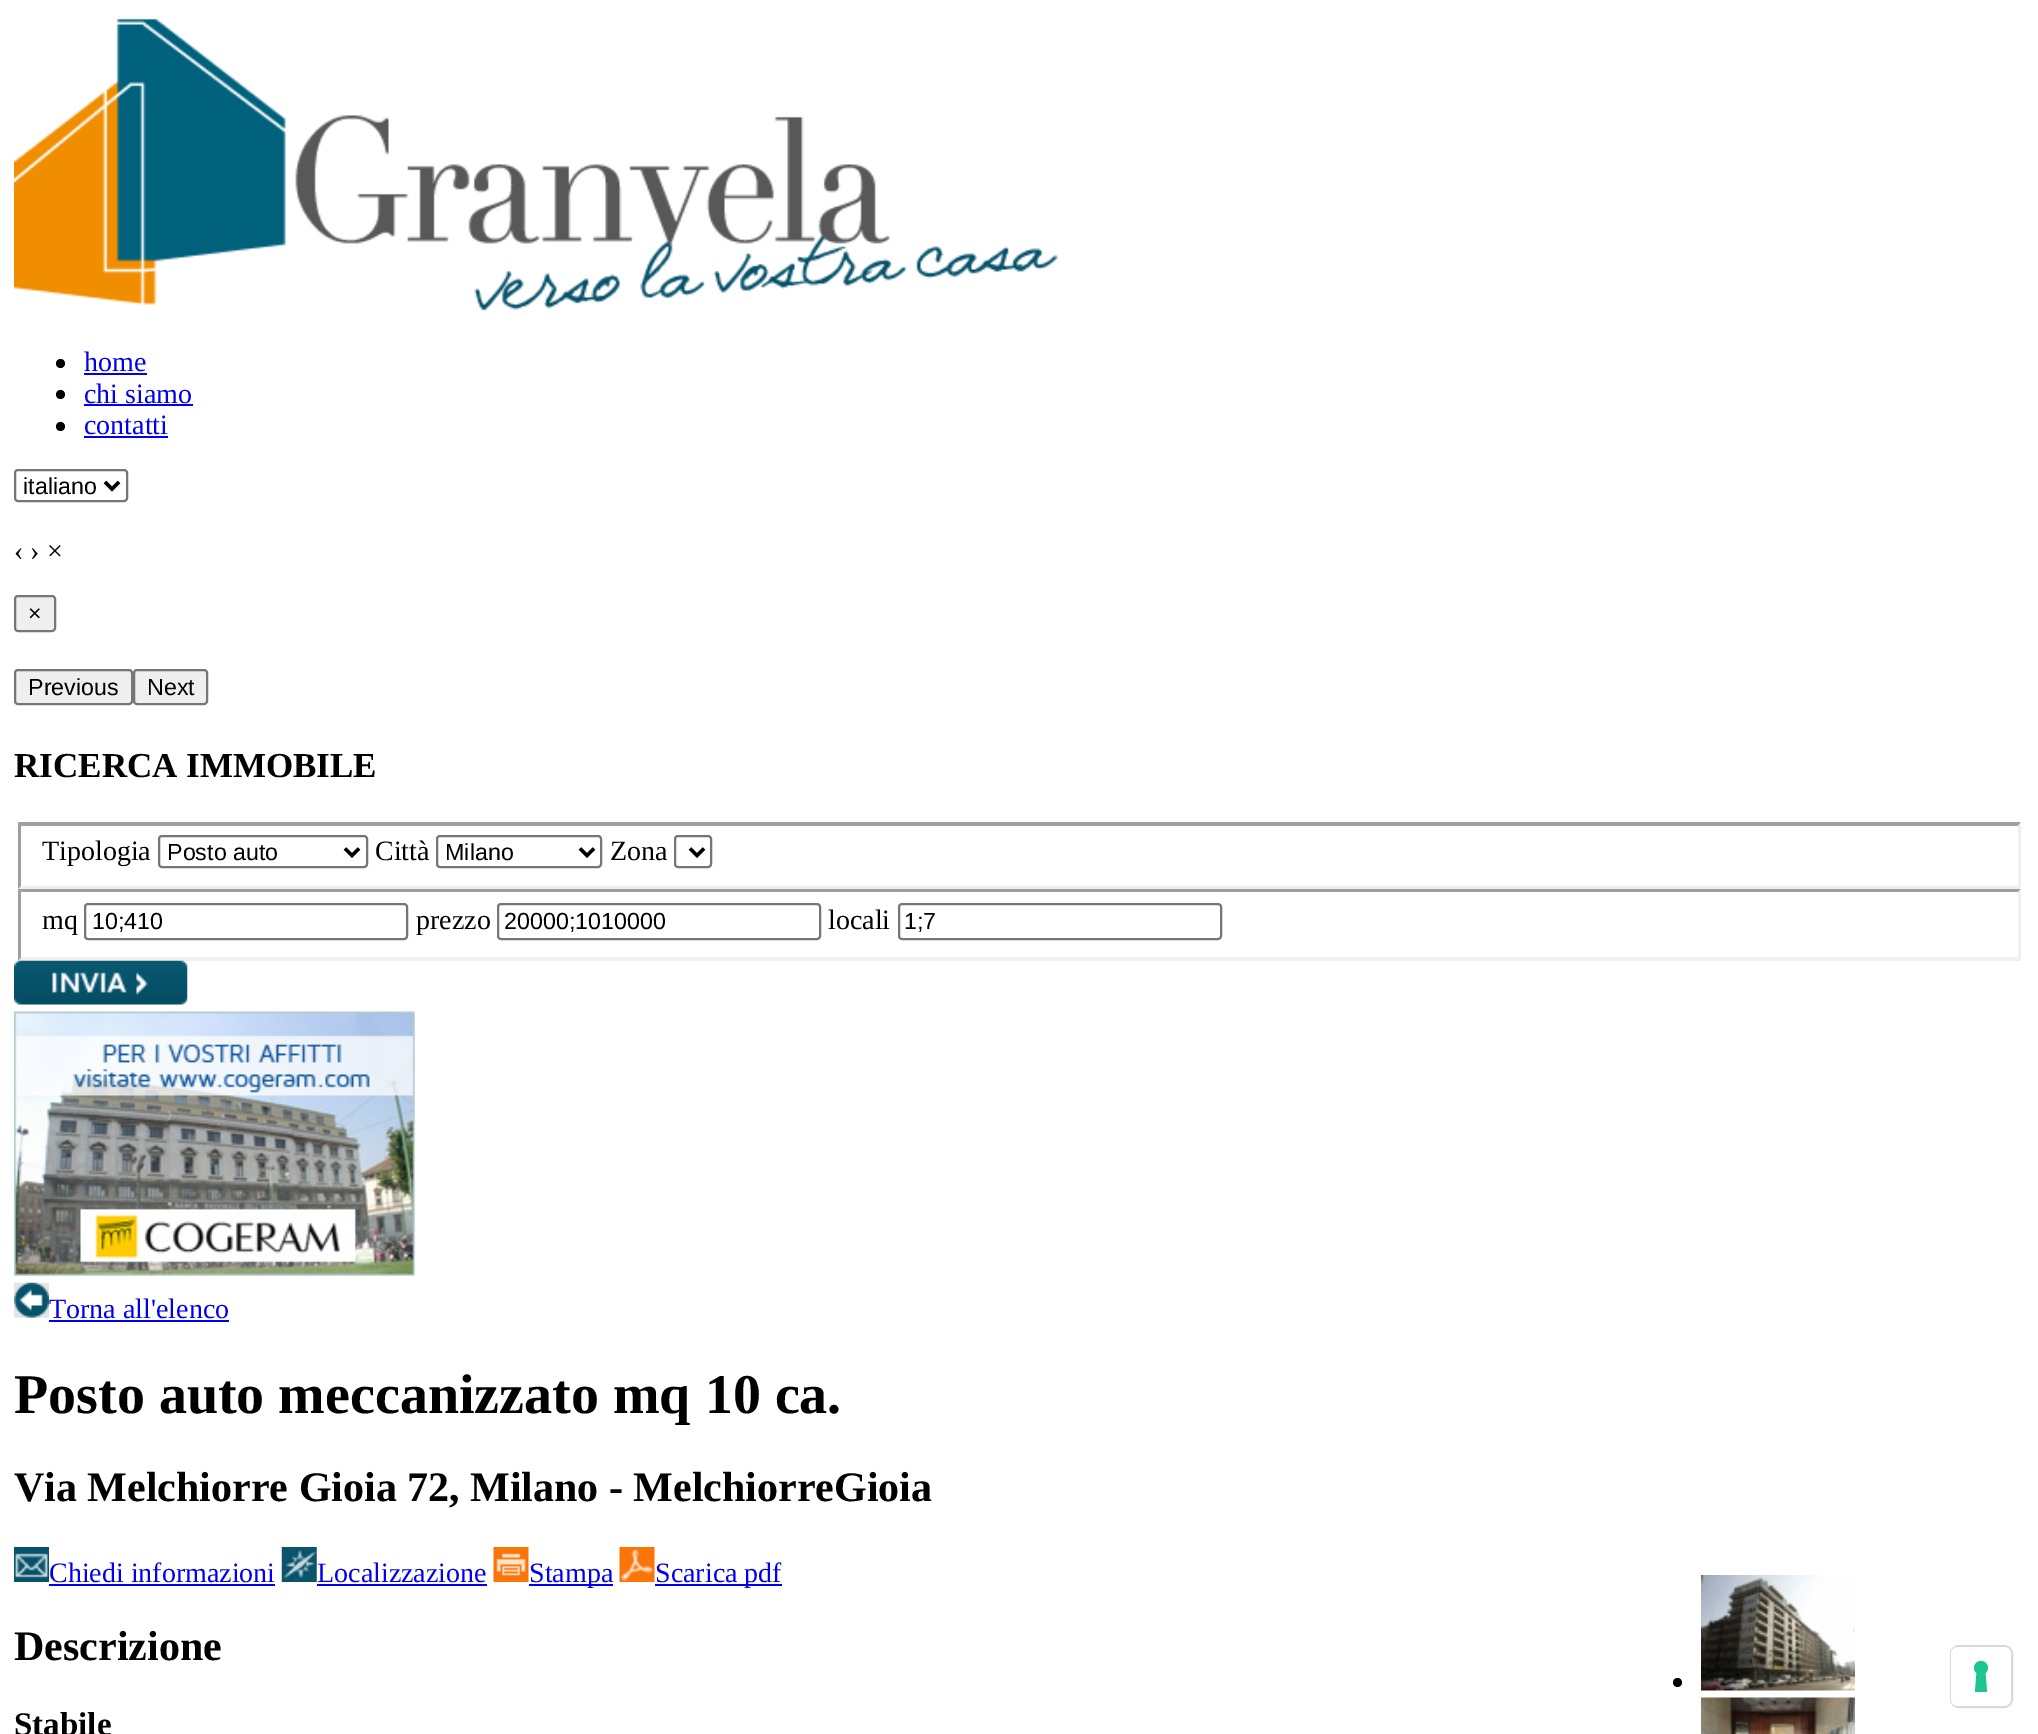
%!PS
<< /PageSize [2038 1734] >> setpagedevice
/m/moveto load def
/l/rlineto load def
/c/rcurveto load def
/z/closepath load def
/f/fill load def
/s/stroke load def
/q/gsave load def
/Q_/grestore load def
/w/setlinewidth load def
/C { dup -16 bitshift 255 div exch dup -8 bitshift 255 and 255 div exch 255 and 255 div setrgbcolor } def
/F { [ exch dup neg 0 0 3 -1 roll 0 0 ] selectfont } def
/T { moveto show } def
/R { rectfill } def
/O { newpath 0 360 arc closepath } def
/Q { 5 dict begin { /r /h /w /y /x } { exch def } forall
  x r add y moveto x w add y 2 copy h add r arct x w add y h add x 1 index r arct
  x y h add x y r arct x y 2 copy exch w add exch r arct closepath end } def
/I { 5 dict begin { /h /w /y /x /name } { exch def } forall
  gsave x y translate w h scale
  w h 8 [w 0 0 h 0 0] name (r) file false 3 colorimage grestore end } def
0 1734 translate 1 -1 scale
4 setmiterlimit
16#FFFFFF C
0 0 2038 1734 R
(1.rgb) 14 18 1044 293 I
16#000000 C
60.5 363.5 4.5 O f
/LiberationSerif-Regular 28 F
16#0000EE C
(home) 84 371 T
84 373 63 2 R
16#000000 C
60.5 394.5 4.5 O f
16#0000EE C
(chi siamo) 84 403 T
84 404 109 2 R
16#000000 C
60.5 426.5 4.5 O f
16#0000EE C
(contatti) 84 434 T
84 436 84 2 R
16#767676 C
2 w
15 470 112 31 3 Q s
16#000000 C
3.5 w
105 482 m 7 7 l 7 -7 l s
/LiberationSans-Regular 23.25 F
(italiano) 23 494 T
/LiberationSerif-Regular 28 F
(‹ › ×) 14 560 T
16#EFEFEF C
15 596 40 35 3 Q q f Q_
16#767676 C
2 w
s
/LiberationSans-Regular 23.25 F
16#000000 C
(×) 28 621 T
16#EFEFEF C
15 670 117 34 3 Q q f Q_
16#767676 C
s
16#000000 C
(Previous) 28 695 T
16#EFEFEF C
134 670 73 34 3 Q q f Q_
16#767676 C
s
16#000000 C
(Next) 147 695 T
/LiberationSerif-Bold 35 F
(RICERCA IMMOBILE) 14 777 T
16#9F9F9F C
18 822 m 2003 0 l -3 4 l -1997 0 l z f
16#EFEFEF C
2021 822 m 0 67 l -3 -3 l 0 -60 l z f
2021 889 m -2003 0 l 3 -3 l 1997 0 l z f
16#9F9F9F C
18 889 m 0 -67 l 3 4 l 0 60 l z f
/LiberationSerif-Regular 28 F
16#000000 C
(Tipologia) 42 860 T
16#767676 C
159 836 208 31 3 Q s
16#000000 C
3.5 w
345 848.5 m 7 7 l 7 -7 l s
/LiberationSans-Regular 23.25 F
(Posto auto) 167 860 T
/LiberationSerif-Regular 28 F
(Città) 375 860 T
16#767676 C
2 w
437 836 164 31 3 Q s
16#000000 C
3.5 w
580 848.5 m 7 7 l 7 -7 l s
/LiberationSans-Regular 23.25 F
(Milano) 445 860 T
/LiberationSerif-Regular 28 F
(Zona) 610 860 T
16#767676 C
2 w
675 836 36 31 3 Q s
16#000000 C
3.5 w
690 848.5 m 7 7 l 7 -7 l s
16#9F9F9F C
18 889 m 2003 0 l -3 3 l -1997 0 l z f
16#EFEFEF C
2021 889 m 0 72 l -3 -4 l 0 -65 l z f
2021 961 m -2003 0 l 3 -4 l 1997 0 l z f
16#9F9F9F C
18 961 m 0 -72 l 3 3 l 0 65 l z f
16#000000 C
(mq) 42 929 T
16#767676 C
2 w
85 904 322 35 3 Q s
/LiberationSans-Regular 23.25 F
16#000000 C
(10;410) 92 929 T
/LiberationSerif-Regular 28 F
(prezzo) 416 929 T
16#767676 C
498 904 322 35 3 Q s
/LiberationSans-Regular 23.25 F
16#000000 C
(20000;1010000) 504 929 T
/LiberationSerif-Regular 28 F
(locali) 828 929 T
16#767676 C
899 904 322 35 3 Q s
/LiberationSans-Regular 23.25 F
16#000000 C
(1;7) 904 929 T
(2.rgb) 14 960 174 45 I
(3.rgb) 14 1011 401 265 I
(4.rgb) 14 1282 35 36 I
/LiberationSerif-Regular 28 F
16#0000EE C
(Torna all'elenco) 49 1318 T
49 1320 180 2 R
/LiberationSerif-Bold 56 F
16#000000 C
(Posto auto meccanizzato mq 10 ca.) 14 1413 T
/LiberationSerif-Bold 42 F
(Via Melchiorre Gioia 72, Milano - MelchiorreGioia) 14 1501 T
(5.rgb) 14 1547 35 35 I
/LiberationSerif-Regular 28 F
16#0000EE C
(Chiedi informazioni) 49 1582 T
49 1584 226 2 R
(6.rgb) 281 1547 36 35 I
(Localizzazione) 317 1582 T
317 1584 170 2 R
(7.rgb) 493 1547 36 35 I
529 1584 84 2 R
(Stampa) 529 1582 T
(8.rgb) 619 1547 36 35 I
655 1584 127 2 R
(Scarica pdf) 655 1582 T
16#000000 C
1677.5 1682.5 4.5 O f
(9.rgb) 1701 1575 154 116 I
(10.rgb) 1701 1697 154 37 I
/LiberationSerif-Bold 42 F
(Descrizione) 14 1660 T
/LiberationSerif-Bold 33 F
(Stabile) 14 1735 T
16#D9D9D9 C
1951 1646 61 61 8 Q s
16#FFFFFF C
1951 1647 60 59 7 Q f
16#1CC691 C
1981 1661 m 6.5 0 9.5 8 4.5 12 c 1.5 19 l -12 0 l 1.5 -19 l -5 -4 -2 -12 4.5 -12 c z eofill
showpage
